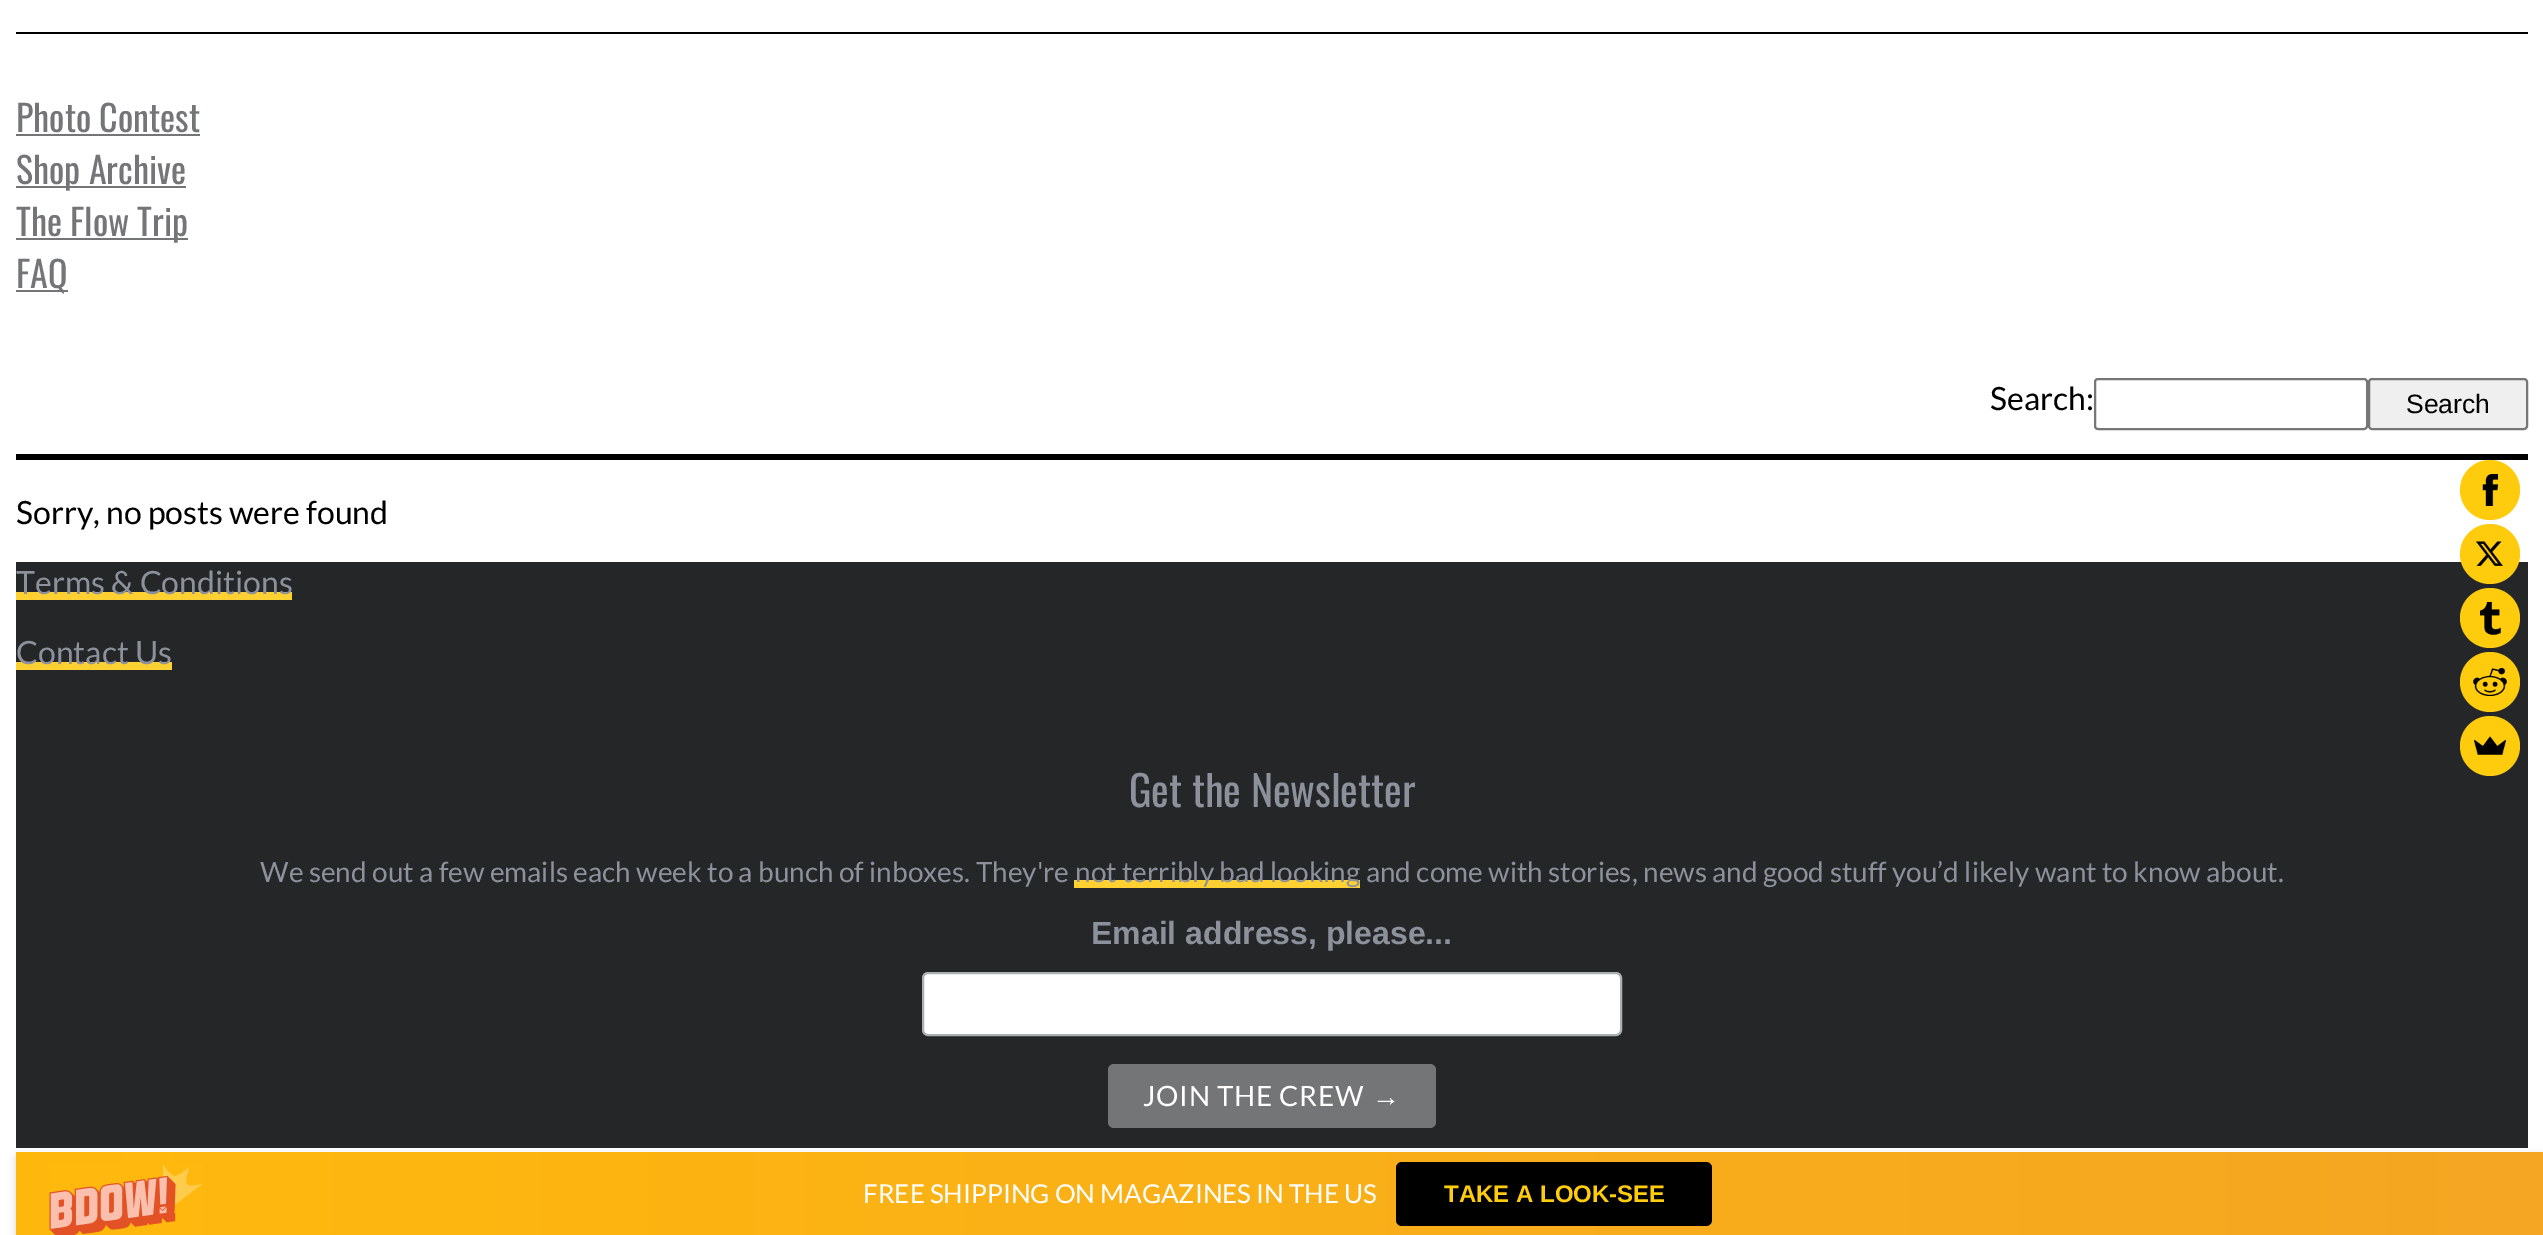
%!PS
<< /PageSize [2543 1235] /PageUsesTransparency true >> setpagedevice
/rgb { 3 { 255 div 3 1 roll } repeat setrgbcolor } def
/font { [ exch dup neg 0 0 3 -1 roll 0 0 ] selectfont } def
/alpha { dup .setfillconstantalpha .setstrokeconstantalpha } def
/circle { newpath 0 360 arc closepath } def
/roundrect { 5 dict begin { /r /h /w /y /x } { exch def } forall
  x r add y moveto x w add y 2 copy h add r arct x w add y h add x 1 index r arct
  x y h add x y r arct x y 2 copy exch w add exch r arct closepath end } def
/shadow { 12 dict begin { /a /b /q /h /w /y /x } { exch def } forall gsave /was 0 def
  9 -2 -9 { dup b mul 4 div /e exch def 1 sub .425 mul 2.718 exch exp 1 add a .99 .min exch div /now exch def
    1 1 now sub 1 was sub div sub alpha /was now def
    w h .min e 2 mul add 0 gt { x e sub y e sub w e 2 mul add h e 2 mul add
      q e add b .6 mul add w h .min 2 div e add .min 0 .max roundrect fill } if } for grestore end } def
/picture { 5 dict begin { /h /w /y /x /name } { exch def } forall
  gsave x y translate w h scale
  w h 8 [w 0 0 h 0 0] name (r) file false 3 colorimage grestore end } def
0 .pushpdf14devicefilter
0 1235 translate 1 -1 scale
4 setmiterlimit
255 255 255 rgb
0 0 2543 1235 rectfill
[
  [16 32 2512 2 0 0 0]
  [16 454 2512 6 0 0 0]
  [16 134 184 2 116 117 118]
  [16 186 170 2 116 117 118]
  [16 238 172 2 116 117 118]
  [16 290 52 2 116 117 118]
] { aload pop rgb rectfill } forall
118 118 118 rgb
2 setlinewidth
2095 379 272 50 3 roundrect stroke
239 239 239 rgb
2369 379 158 50 3 roundrect gsave fill grestore
118 118 118 rgb
stroke
[
  [16 562 2512 586 36 38 40]
  [16 592 276 8 254 208 49]
  [16 662 156 8 254 208 49]
  [1074 880 286 8 254 208 49]
] { aload pop rgb rectfill } forall
255 255 255 rgb
923 973 698 62 5 roundrect gsave fill grestore
171 176 178 rgb
stroke
116 117 118 rgb
1108 1064 328 64 6 roundrect fill
255 204 13 rgb
2490 490 30 circle fill
(img/1.rgb) 2482 474 16 32 picture
2490 554 30 circle fill
(img/2.rgb) 2476 541 27 25 picture
2490 618 30 circle fill
(img/3.rgb) 2480 602 21 33 picture
2490 682 30 circle fill
(img/4.rgb) 2473 668 34 28 picture
2490 746 30 circle fill
(img/5.rgb) 2474 736 32 19 picture
0 0 0 rgb
18 1158 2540 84 0 5 0.25 shadow
gsave 16 1152 moveto 2543 1152 lineto 2543 1235 lineto 16 1235 lineto closepath clip newpath
<< /ShadingType 2 /ColorSpace /DeviceRGB /Coords [16 1194 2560 1194] /Extend [true true] /Function << /FunctionType 2 /Domain [0 1] /C0 [1 0.725 0.051] /C1 [0.961 0.651 0.137] /N 1 >> >> shfill grestore
(img/6.rgb) 49 1164 154 71 picture
1396 1162 316 64 6 roundrect fill
/Oswald-Regular 36 font
116 117 118 rgb
[
  [(Photo Contest) 16 132]
  [(Shop Archive) 16 184]
  [(The Flow Trip) 16 236]
  [(FAQ) 16 288]
] { aload pop moveto show } forall
/Lato-Regular 32 font
0 0 0 rgb
1990 410 moveto (Search:) show
/LiberationSans-Regular 26.5 font
2406 413 moveto (Search) show
/Lato-Regular 32 font
16 524 moveto (Sorry, no posts were found) show
140 145 155 rgb
16 594 moveto (Terms & Conditions) show
16 664 moveto (Contact Us) show
/Oswald-Regular 42 font
1129 807 moveto (Get the Newsletter) show
/Lato-Regular 28 font
260 882 moveto (We send out a few emails each week to a bunch of inboxes. They're) show
1075 882 moveto (not terribly bad looking and come with stories, news and good stuff you’d likely want to know about.) show
/LiberationSans-Bold 32 font
1091 944 moveto (Email address, please...) show
/Lato-Regular 28 font
255 255 255 rgb
1143 1106 moveto 0.8 0 (JOIN THE CREW) ashow
/LiberationSerif-Regular 28 font
1372 1106 moveto 0.8 0 (→) ashow
/Lato-Regular 26 font
863 1203 moveto (FREE SHIPPING ON MAGAZINES IN THE US) show
/LiberationSans-Bold 24 font
255 204 13 rgb
1444 1202 moveto (TAKE A LOOK-SEE) show
.poppdf14devicefilter showpage
